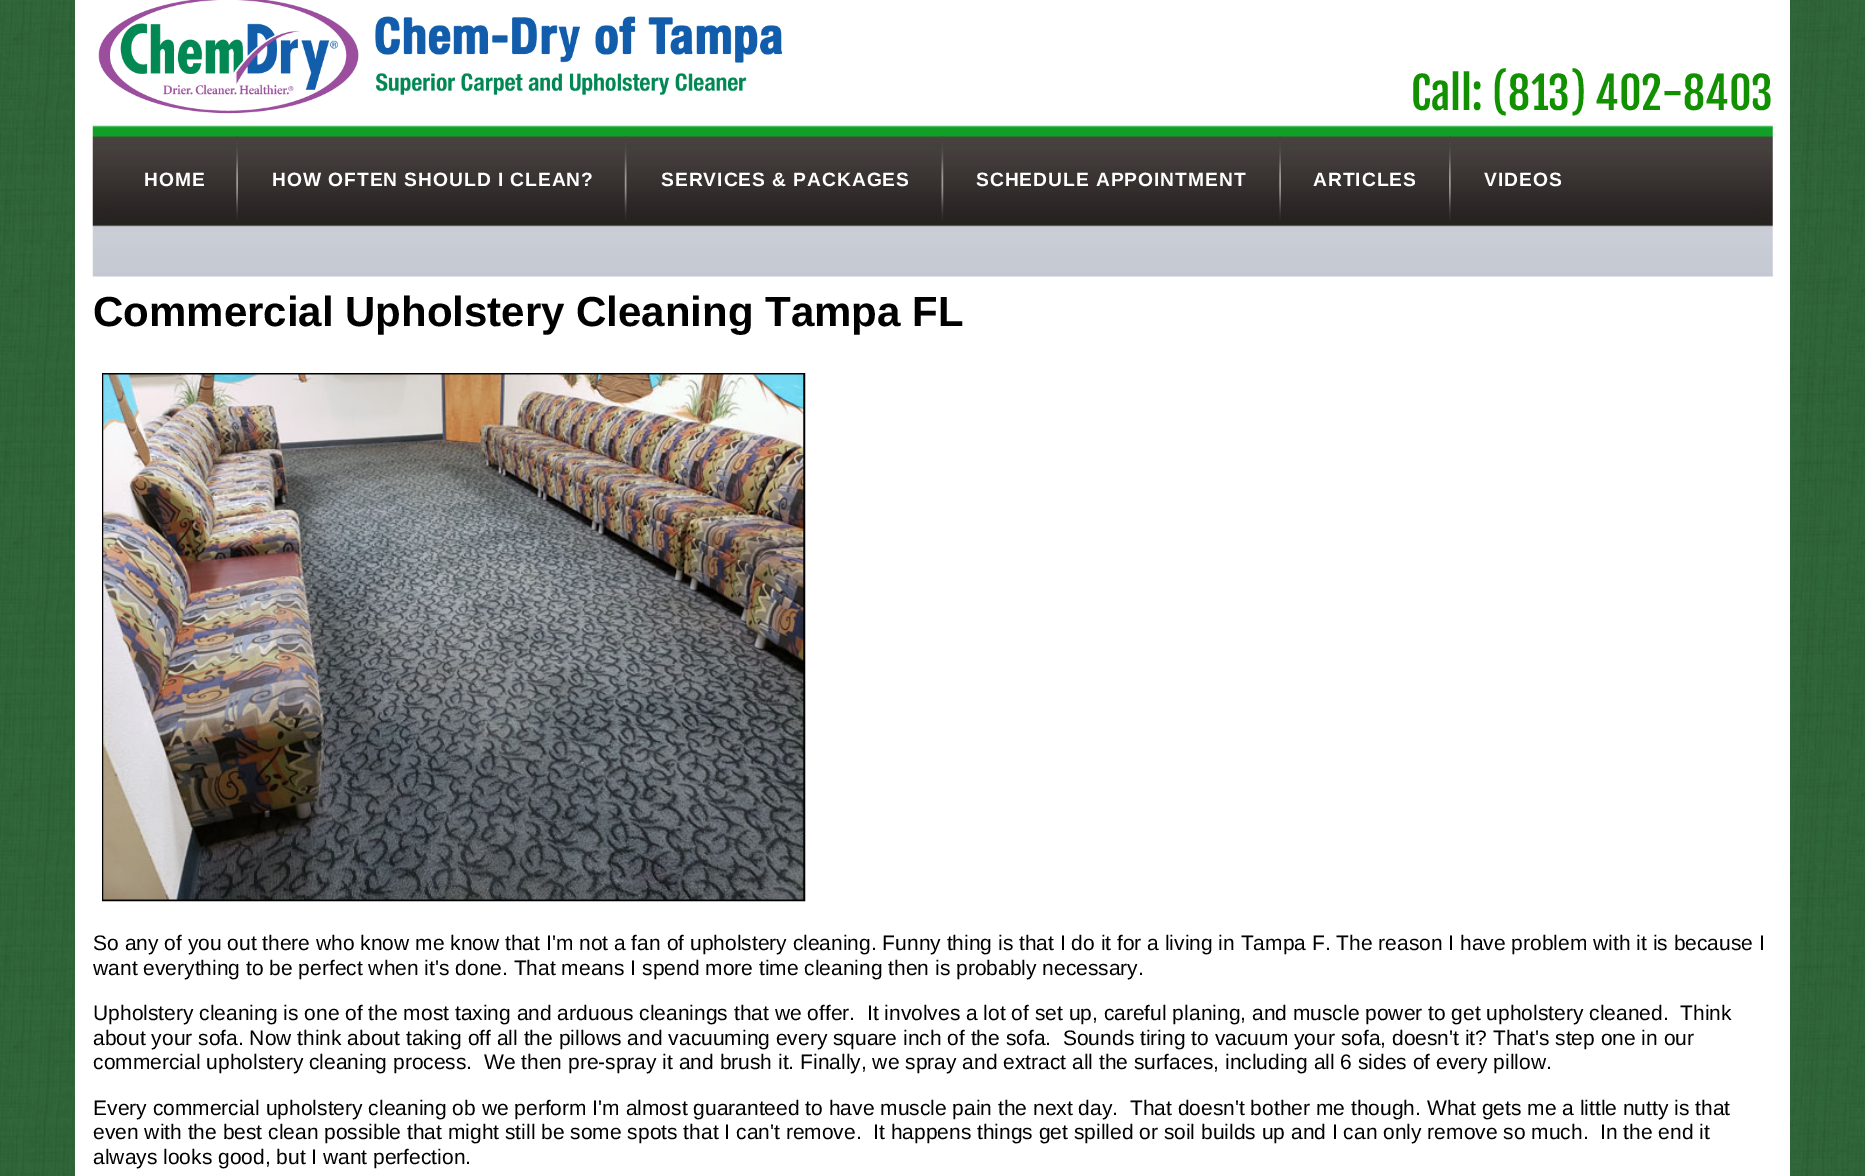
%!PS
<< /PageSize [1865 1176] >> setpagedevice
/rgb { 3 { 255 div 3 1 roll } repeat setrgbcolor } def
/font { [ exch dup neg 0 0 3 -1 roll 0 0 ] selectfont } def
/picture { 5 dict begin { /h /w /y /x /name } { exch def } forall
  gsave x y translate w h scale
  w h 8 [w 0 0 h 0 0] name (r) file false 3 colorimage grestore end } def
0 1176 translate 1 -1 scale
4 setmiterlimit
255 255 255 rgb
0 0 1865 1176 rectfill
(img/1.rgb) 0 0 1865 1176 picture
75 0 1715 1176 rectfill
(img/2.rgb) 98 0 685 114 picture
0 0 0 rgb
2 setlinewidth
103 374 701 526 rectstroke
(img/3.rgb) 103 374 701 526 picture
(img/4.rgb) 92 121 1681 156 picture
(img/5.rgb) 236 136 2 84 picture
(img/6.rgb) 624 136 3 84 picture
(img/7.rgb) 941 136 3 84 picture
(img/5.rgb) 1279 136 2 84 picture
(img/8.rgb) 1449 136 2 84 picture
/FjallaOne-Regular 43.75 font
17 144 0 rgb
1411 110 moveto (Call: \(813\) 402-8403) show
/LiberationSans-Bold 42 font
0 0 0 rgb
93 326 moveto (Commercial Upholstery Cleaning Tampa FL) show
/LiberationSans-Regular 21 font
[
  [(So any of you out there who know me know that I'm not a fan of upholstery cleaning. Funny thing is that I do it for a living in Tampa F. The reason I have problem with it is because I) 93 950]
  [(want everything to be perfect when it's done. That means I spend more time cleaning then is probably necessary.) 93 975]
  [(Upholstery cleaning is one of the most taxing and arduous cleanings that we offer.  It involves a lot of set up, careful planing, and muscle power to get upholstery cleaned.  Think) 93 1020]
  [(about your sofa. Now think about taking off all the pillows and vacuuming every square inch of the sofa.  Sounds tiring to vacuum your sofa, doesn't it? That's step one in our) 93 1045]
  [(commercial upholstery cleaning process.  We then pre-spray it and brush it. Finally, we spray and extract all the surfaces, including all 6 sides of every pillow.) 93 1069]
  [(Every commercial upholstery cleaning ob we perform I'm almost guaranteed to have muscle pain the next day.  That doesn't bother me though. What gets me a little nutty is that) 93 1115]
  [(even with the best clean possible that might still be some spots that I can't remove.  It happens things get spilled or soil builds up and I can only remove so much.  In the end it) 93 1139]
  [(always looks good, but I want perfection.) 93 1164]
] { aload pop moveto show } forall
/LiberationSans-Bold 19.25 font
255 255 255 rgb
144 186 moveto 0.95 0 (HOME) ashow
272 186 moveto 0.95 0 (HOW OFTEN SHOULD I CLEAN?) ashow
661 186 moveto 0.95 0 (SERVICES & PACKAGES) ashow
976 186 moveto 0.95 0 (SCHEDULE APPOINTMENT) ashow
1313 186 moveto 0.95 0 (ARTICLES) ashow
1484 186 moveto 0.95 0 (VIDEOS) ashow
showpage
